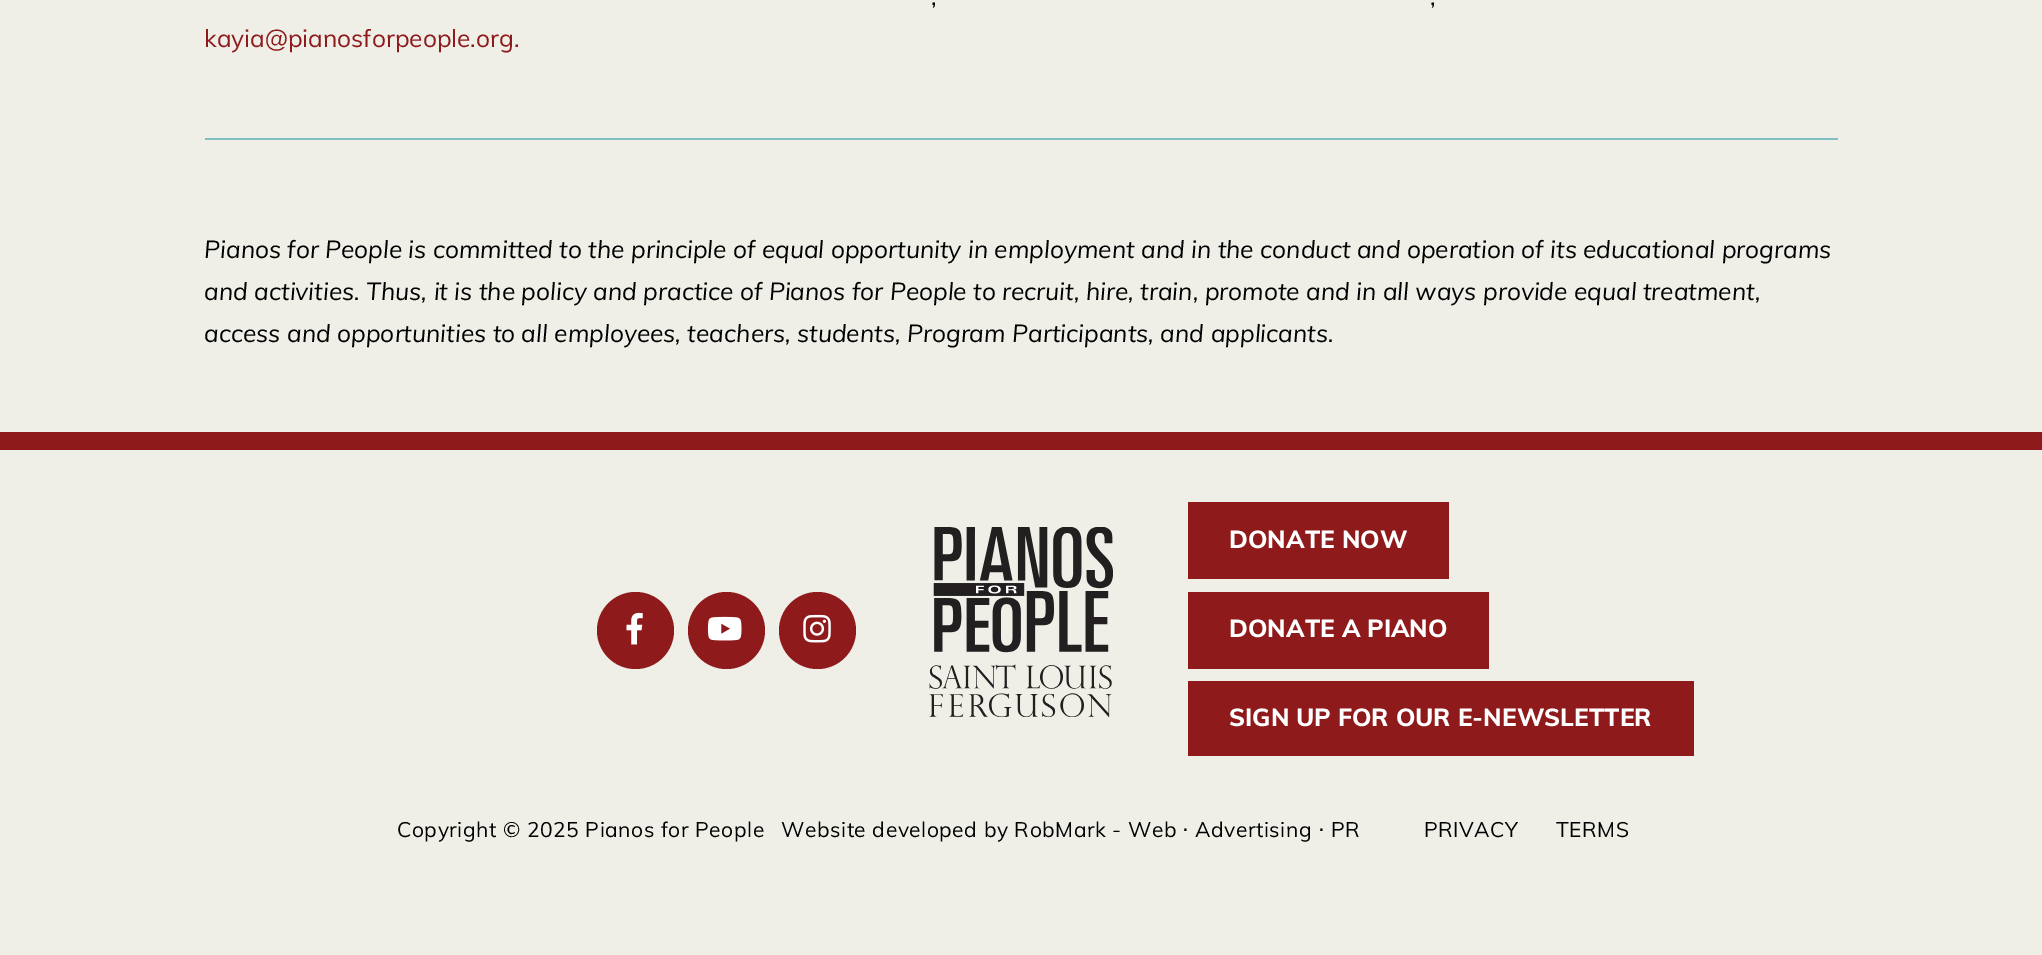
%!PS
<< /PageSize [2042 955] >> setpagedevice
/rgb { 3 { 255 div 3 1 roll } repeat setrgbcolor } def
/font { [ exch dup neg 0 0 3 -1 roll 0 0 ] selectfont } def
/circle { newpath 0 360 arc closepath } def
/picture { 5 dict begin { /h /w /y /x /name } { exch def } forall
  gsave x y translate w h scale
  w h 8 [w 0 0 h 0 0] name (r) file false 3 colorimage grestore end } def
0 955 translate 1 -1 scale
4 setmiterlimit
239 239 232 rgb
0 0 2042 955 rectfill
126 190 197 rgb
205 138 1633 2 rectfill
142 26 28 rgb
0 432 2042 18 rectfill
635.5 630.5 38.5 circle fill
(img/1.rgb) 626 612 17 33 picture
726.5 630.5 38.5 circle fill
(img/2.rgb) 707 616 35 25 picture
817.5 630.5 38.5 circle fill
(img/3.rgb) 803 614 28 29 picture
(img/4.rgb) 929 527 184 190 picture
[
  [1188 502 261 77 142 26 28]
  [1188 592 301 77 142 26 28]
  [1188 681 506 75 142 26 28]
] { aload pop rgb rectfill } forall
/Muli-Regular 24.5 font
0 0 0 rgb
931 5 moveto (,) show
1430 5 moveto (,) show
142 26 28 rgb
204 47 moveto (kayia@pianosforpeople.org.) show
/Muli-Italic 24.5 font
0 0 0 rgb
[
  [(Pianos for People is committed to the principle of equal opportunity in employment and in the conduct and operation of its educational programs) 204 258]
  [(and activities. Thus, it is the policy and practice of Pianos for People to recruit, hire, train, promote and in all ways provide equal treatment,) 204 300]
  [(access and opportunities to all employees, teachers, students, Program Participants, and applicants.) 204 342]
] { aload pop moveto show } forall
/Muli-ExtraBold 24.5 font
255 255 255 rgb
[
  [(DONATE NOW) 1229 548]
  [(DONATE A PIANO) 1229 637]
  [(SIGN UP FOR OUR E-NEWSLETTER) 1229 726]
] { aload pop moveto show } forall
/Muli-Regular 21 font
0 0 0 rgb
397 837 moveto 0.55 0 (Copyright © 2025 Pianos for People) ashow
781 837 moveto 0.55 0 (Website developed by RobMark - Web) ashow
/DejaVuSans-Regular 21 font
1182 837 moveto 0.55 0 (⋅) ashow
/Muli-Regular 21 font
1195 837 moveto 0.55 0 (Advertising) ashow
/DejaVuSans-Regular 21 font
1318 837 moveto 0.55 0 (⋅) ashow
/Muli-Regular 21 font
1331 837 moveto 0.55 0 (PR) ashow
1424 837 moveto 0.55 0 (PRIVACY) ashow
1556 837 moveto 0.55 0 (TERMS) ashow
showpage
